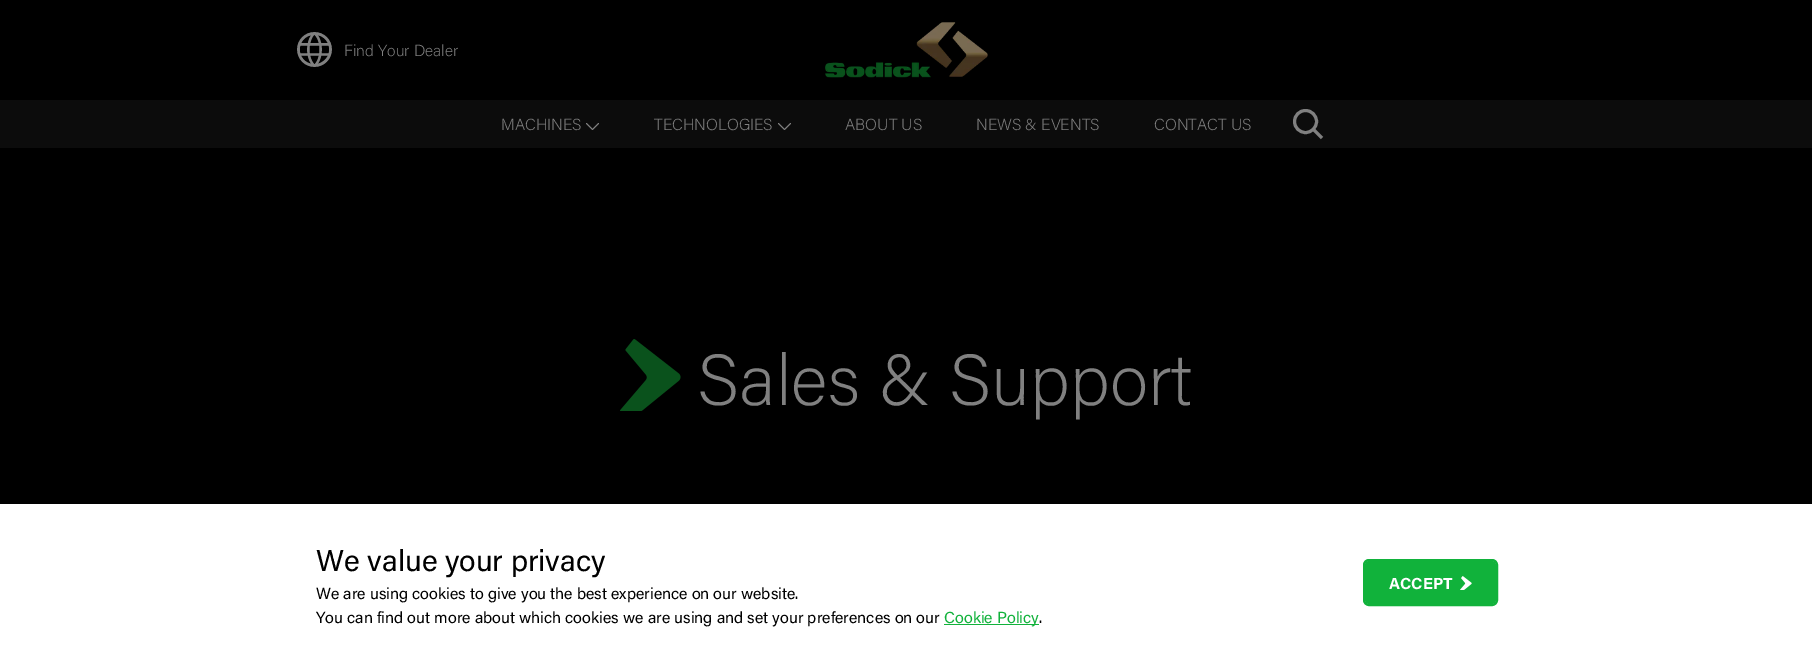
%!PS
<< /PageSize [1812 661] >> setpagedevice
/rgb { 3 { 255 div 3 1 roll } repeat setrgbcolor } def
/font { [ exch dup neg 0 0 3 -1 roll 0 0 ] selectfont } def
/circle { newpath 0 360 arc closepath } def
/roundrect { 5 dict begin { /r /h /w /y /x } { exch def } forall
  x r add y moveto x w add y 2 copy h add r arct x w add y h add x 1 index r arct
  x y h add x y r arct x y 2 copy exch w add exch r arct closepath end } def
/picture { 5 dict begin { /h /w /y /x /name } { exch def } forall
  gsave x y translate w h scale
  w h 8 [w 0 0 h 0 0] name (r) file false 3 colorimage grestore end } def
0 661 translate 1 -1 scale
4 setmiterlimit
0 0 0 rgb
0 0 1812 661 rectfill
(img/1.rgb) 297 32 35 35 picture
(img/2.rgb) 825 22 163 56 picture
12 12 12 rgb
0 100 1812 48 rectfill
128 128 128 rgb
1 setlinecap
586.5 123.5 moveto 592.5 129.5 lineto 598.5 123.5 moveto 592.5 129.5 lineto stroke
778.5 123.5 moveto 784.5 129.5 lineto 790.5 123.5 moveto 784.5 129.5 lineto stroke
3 setlinewidth
0 setlinecap
1305.5 121.5 11 circle stroke
1314 130 moveto 1322 138 lineto stroke
(img/3.rgb) 620 339 61 72 picture
255 255 255 rgb
0 504 1812 157 rectfill
17 178 59 rgb
944 624 95 1 rectfill
1365 561 131 43 4 roundrect fill
2 setlinewidth
1364 560 133 45 5 roundrect stroke
(img/4.rgb) 1460 576 12 14 picture
/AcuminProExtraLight-ExtraLight 16 font
128 128 128 rgb
[
  [(Find Your Dealer) 344 56]
  [(MACHINES) 501 130]
  [(TECHNOLOGIES) 654 130]
  [(ABOUT US) 845 130]
  [(NEWS & EVENTS) 976 130]
  [(CONTACT US) 1154 130]
] { aload pop moveto show } forall
/AcuminProExtraLight-ExtraLight 72 font
697 405 moveto (Sales & Support) show
/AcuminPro-Regular 30 font
0 0 0 rgb
316 571 moveto (We value your privacy) show
/AcuminPro-Regular 16 font
316 599 moveto (We are using cookies to give you the best experience on our website.) show
316 623 moveto (You can find out more about which cookies we are using and set your preferences on our) show
17 178 59 rgb
944 623 moveto (Cookie Policy) show
0 0 0 rgb
1039 623 moveto (.) show
/AcuminPro-Bold 16 font
255 255 255 rgb
1389 589 moveto (ACCEPT) show
showpage
